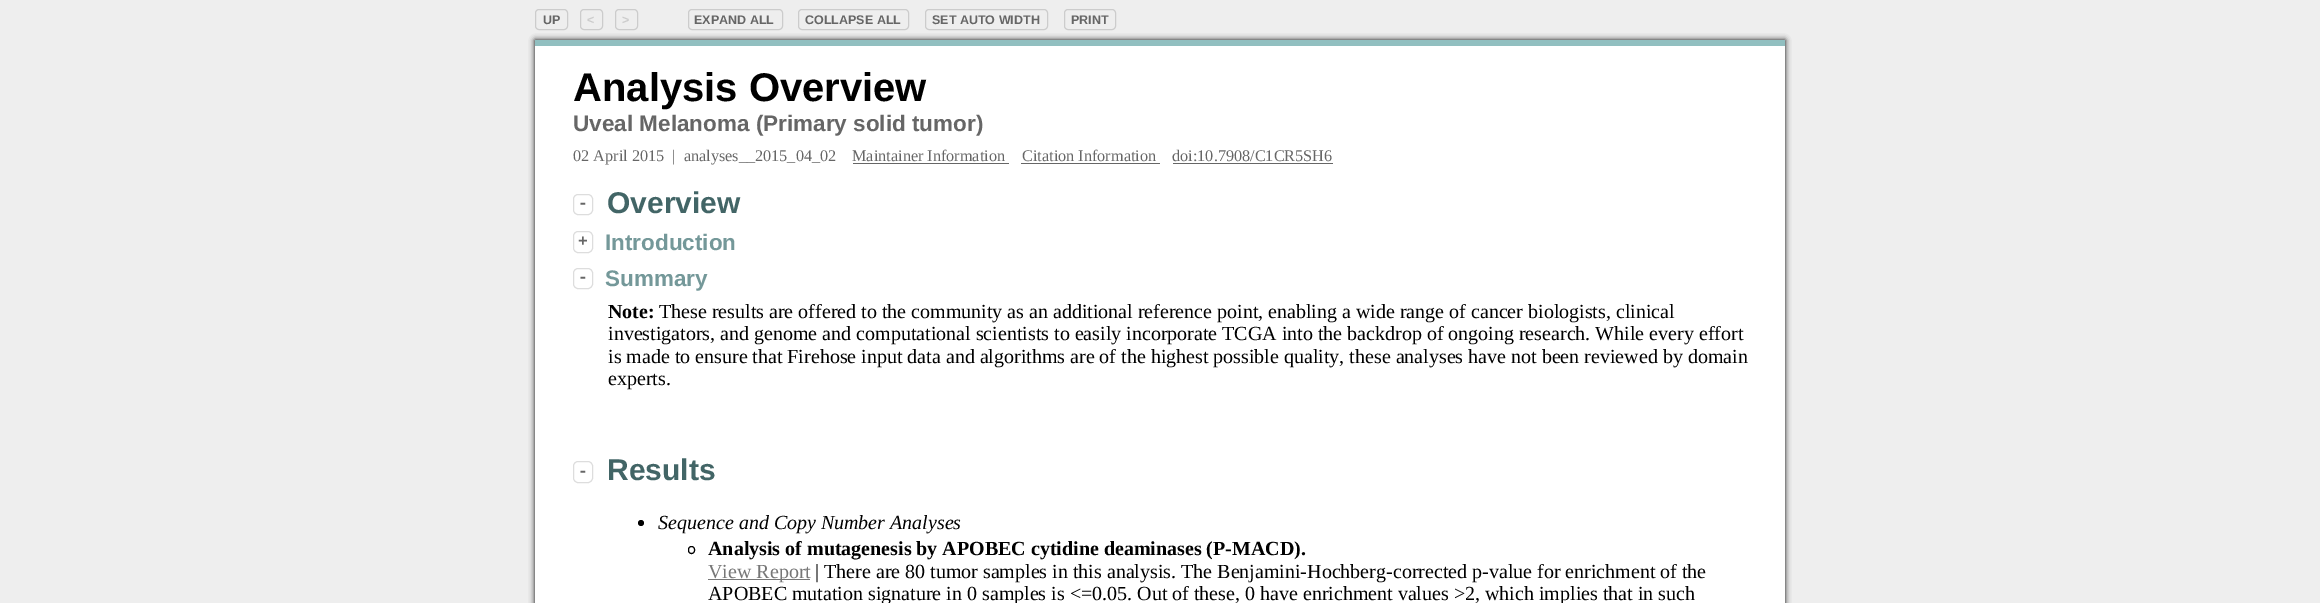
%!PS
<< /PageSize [2320 603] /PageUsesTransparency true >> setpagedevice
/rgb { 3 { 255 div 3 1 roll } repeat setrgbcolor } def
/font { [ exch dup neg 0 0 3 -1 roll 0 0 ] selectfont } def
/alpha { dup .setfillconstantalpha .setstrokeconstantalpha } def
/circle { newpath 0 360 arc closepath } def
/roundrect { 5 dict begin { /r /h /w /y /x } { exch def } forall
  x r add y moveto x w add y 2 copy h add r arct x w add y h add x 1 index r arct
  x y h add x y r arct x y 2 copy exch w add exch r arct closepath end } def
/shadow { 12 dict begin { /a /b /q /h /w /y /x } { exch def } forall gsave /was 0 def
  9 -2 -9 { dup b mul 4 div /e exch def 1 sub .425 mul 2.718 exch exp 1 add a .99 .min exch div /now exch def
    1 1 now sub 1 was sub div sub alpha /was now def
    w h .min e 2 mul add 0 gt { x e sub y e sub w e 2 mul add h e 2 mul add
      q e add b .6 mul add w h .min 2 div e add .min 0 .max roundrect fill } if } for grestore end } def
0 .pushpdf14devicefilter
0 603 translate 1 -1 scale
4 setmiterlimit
238 238 238 rgb
0 0 2320 603 rectfill
204 204 204 rgb
535.5 9.5 32 20 3.5 roundrect stroke
580.5 9.5 22 20 3.5 roundrect stroke
615.5 9.5 22 20 3.5 roundrect stroke
688.5 9.5 94 20 3.5 roundrect stroke
798.5 9.5 110 20 3.5 roundrect stroke
925.5 9.5 122 20 3.5 roundrect stroke
1064.5 9.5 51 20 3.5 roundrect stroke
0 0 0 rgb
535 40 1250 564 0 3 1 shadow
[
  [535 46 1250 557 255 255 255]
  [535 40 1250 6 145 191 192]
  [853 163 156 1 102 102 102]
  [1021 163 139 1 102 102 102]
  [1173 163 160 1 102 102 102]
] { aload pop rgb rectfill } forall
221 221 221 rgb
573.5 194.5 19 20 4.5 roundrect stroke
573.5 231.5 19 21 4.5 roundrect stroke
573.5 268.5 19 20 4.5 roundrect stroke
573.5 461.5 19 21 4.5 roundrect stroke
0 0 0 rgb
641 523 3 circle fill
688.5 546.5 6 7 3 roundrect stroke
119 119 119 rgb
708 579 102 1 rectfill
/LiberationSans-Bold 12.5 font
102 102 102 rgb
543 24 moveto (UP) show
204 204 204 rgb
587 24 moveto (<) show
622 24 moveto (>) show
102 102 102 rgb
[
  [(EXPAND ALL) 694 24]
  [(COLLAPSE ALL) 805 24]
  [(SET AUTO WIDTH) 932 24]
  [(PRINT) 1071 24]
] { aload pop moveto show } forall
/LiberationSans-Bold 40 font
0 0 0 rgb
573 101 moveto (Analysis Overview) show
/LiberationSans-Bold 22.5 font
102 102 102 rgb
573 131 moveto (Uveal Melanoma \(Primary solid tumor\)) show
/LiberationSerif-Regular 16.25 font
[
  [(02 April 2015  |  analyses__2015_04_02) 573 161]
  [(Maintainer Information) 852 161]
  [(Citation Information) 1022 161]
  [(doi:10.7908/C1CR5SH6) 1172 161]
] { aload pop moveto show } forall
/LiberationMono-Bold 16.25 font
578 208 moveto (-) show
/LiberationSans-Bold 30 font
66 101 102 rgb
607 213 moveto (Overview) show
/LiberationMono-Bold 16.25 font
102 102 102 rgb
578 246 moveto (+) show
/LiberationSans-Bold 22.5 font
116 152 153 rgb
605 250 moveto (Introduction) show
/LiberationMono-Bold 16.25 font
102 102 102 rgb
578 282 moveto (-) show
/LiberationSans-Bold 22.5 font
116 152 153 rgb
605 286 moveto (Summary) show
/LiberationSerif-Bold 20 font
0 0 0 rgb
608 318 moveto (Note:) show
/LiberationSerif-Regular 20 font
[
  [(These results are offered to the community as an additional reference point, enabling a wide range of cancer biologists, clinical) 659 318]
  [(investigators, and genome and computational scientists to easily incorporate TCGA into the backdrop of ongoing research. While every effort) 608 340]
  [(is made to ensure that Firehose input data and algorithms are of the highest possible quality, these analyses have not been reviewed by domain) 608 363]
  [(experts.) 608 385]
] { aload pop moveto show } forall
/LiberationMono-Bold 16.25 font
102 102 102 rgb
578 476 moveto (-) show
/LiberationSans-Bold 30 font
66 101 102 rgb
607 480 moveto (Results) show
/LiberationSerif-Italic 20 font
0 0 0 rgb
658 529 moveto (Sequence and Copy Number Analyses) show
/LiberationSerif-Bold 20 font
708 555 moveto (Analysis of mutagenesis by APOBEC cytidine deaminases \(P-MACD\).) show
/LiberationSerif-Regular 20 font
119 119 119 rgb
708 578 moveto (View Report) show
0 0 0 rgb
815 578 moveto (| There are 80 tumor samples in this analysis. The Benjamini-Hochberg-corrected p-value for enrichment of the) show
708 600 moveto (APOBEC mutation signature in 0 samples is <=0.05. Out of these, 0 have enrichment values >2, which implies that in such) show
.poppdf14devicefilter showpage
